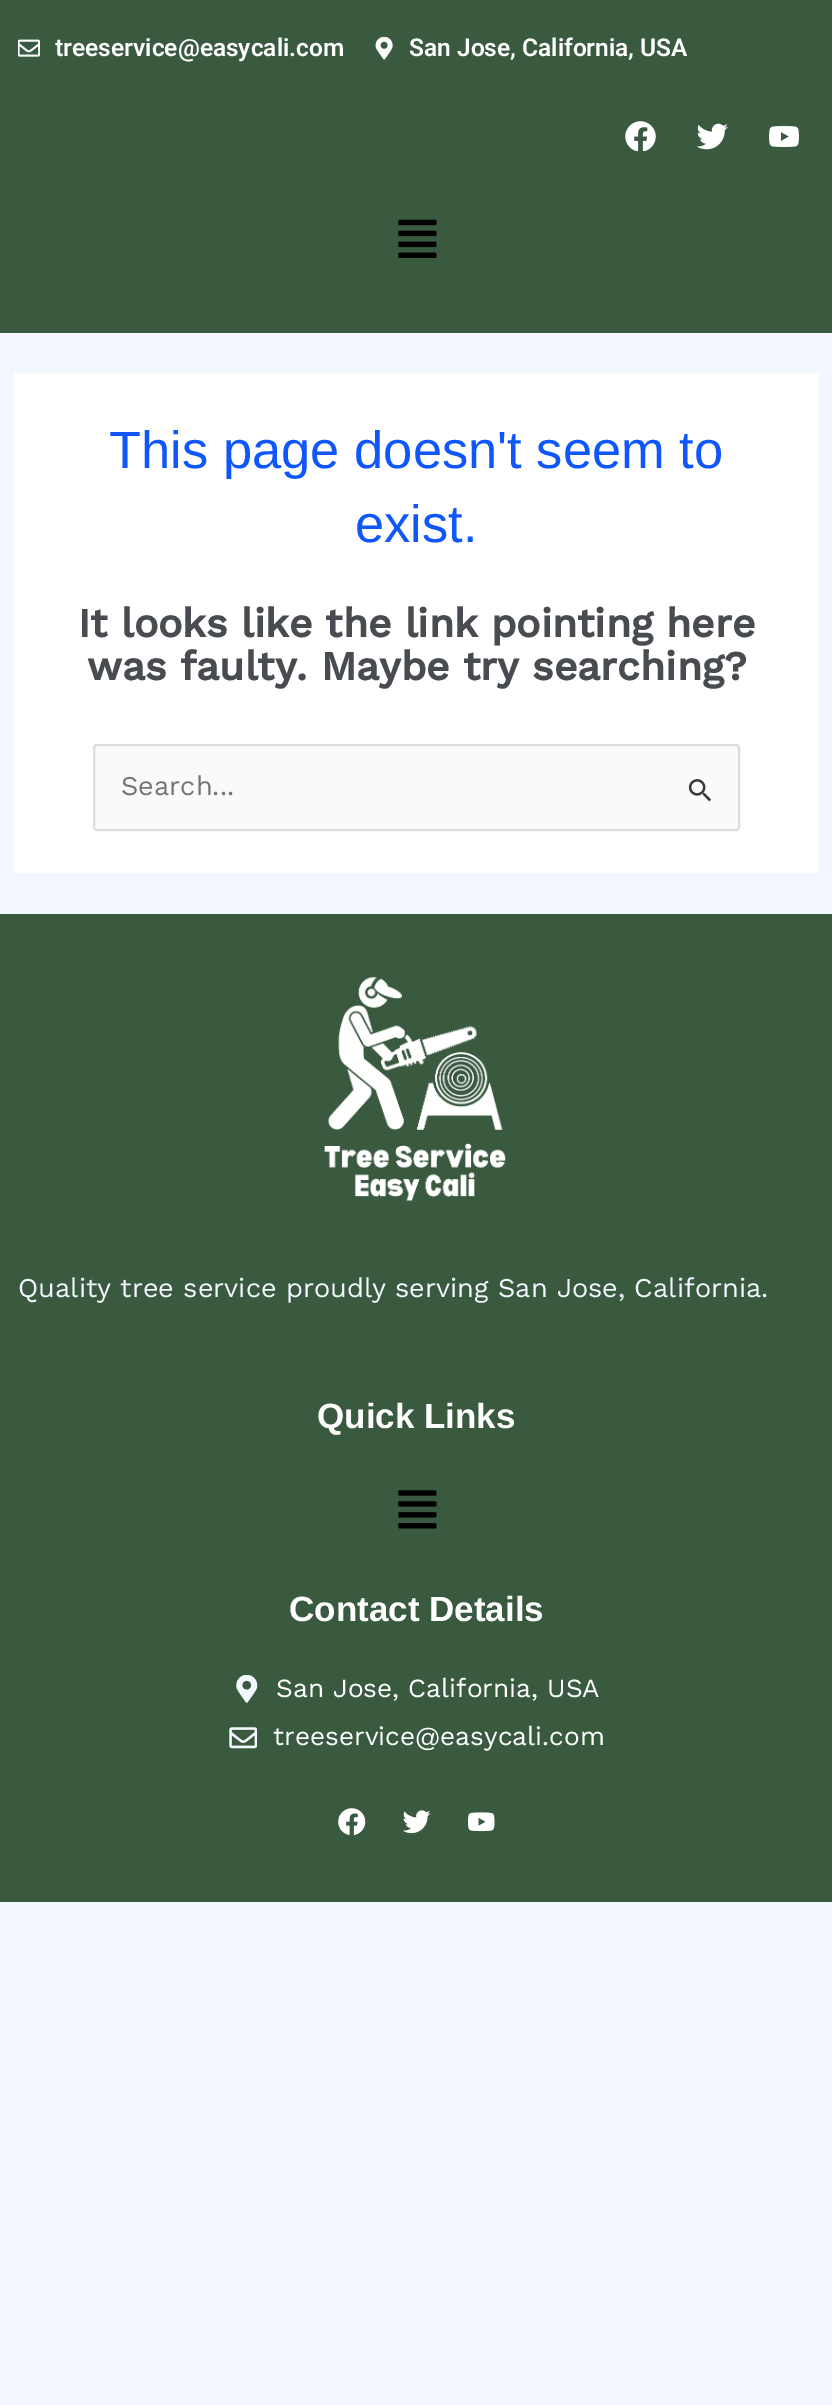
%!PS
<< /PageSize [832 2405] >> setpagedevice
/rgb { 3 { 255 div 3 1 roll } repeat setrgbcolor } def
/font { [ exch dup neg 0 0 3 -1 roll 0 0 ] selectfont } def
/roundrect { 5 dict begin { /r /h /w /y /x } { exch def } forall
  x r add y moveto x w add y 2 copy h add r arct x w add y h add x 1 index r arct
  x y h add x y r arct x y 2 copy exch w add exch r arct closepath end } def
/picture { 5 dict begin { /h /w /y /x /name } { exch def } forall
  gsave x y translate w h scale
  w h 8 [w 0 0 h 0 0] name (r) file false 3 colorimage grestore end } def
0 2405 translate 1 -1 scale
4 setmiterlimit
243 247 255 rgb
0 0 832 2405 rectfill
58 90 64 rgb
0 0 832 333 rectfill
(img/1.rgb) 18 39 22 18 picture
(img/2.rgb) 375 37 18 23 picture
(img/3.rgb) 625 121 31 30 picture
(img/4.rgb) 697 123 31 27 picture
(img/5.rgb) 769 126 30 21 picture
(img/6.rgb) 398 219 39 39 picture
255 255 255 rgb
14 373 805 500 rectfill
250 250 250 rgb
94 745 645 85 3 roundrect gsave fill grestore
221 221 221 rgb
2 setlinewidth
stroke
(img/7.rgb) 688 779 23 23 picture
58 90 64 rgb
0 914 832 988 rectfill
(img/8.rgb) 324 976 182 225 picture
(img/9.rgb) 398 1490 39 39 picture
(img/10.rgb) 236 1675 22 28 picture
(img/11.rgb) 229 1727 28 22 picture
(img/12.rgb) 338 1808 28 28 picture
(img/13.rgb) 403 1810 28 24 picture
(img/14.rgb) 468 1812 27 20 picture
/Roboto-SemiBold 24.5 font
255 255 255 rgb
55 56 moveto (treeservice@easycali.com) show
409 56 moveto (San Jose, California, USA) show
/LiberationSans-Regular 52.5 font
15 87 251 rgb
109 468 moveto (This page doesn't seem to) show
355 542 moveto (exist.) show
/WorkSans-Bold 40.75 font
72 76 80 rgb
78 637 moveto (It looks like the link pointing here) show
87 680 moveto (was faulty. Maybe try searching?) show
/WorkSans-Regular 27.1 font
117 117 117 rgb
121 795 moveto (Search...) show
243 247 255 rgb
18 1297 moveto (Quality tree service proudly serving San Jose, California.) show
/LiberationSans-Bold 35 font
255 255 255 rgb
317 1428 moveto (Quick Links) show
289 1621 moveto (Contact Details) show
/WorkSans-Regular 26.25 font
276 1697 moveto (San Jose, California, USA) show
273 1745 moveto (treeservice@easycali.com) show
showpage
